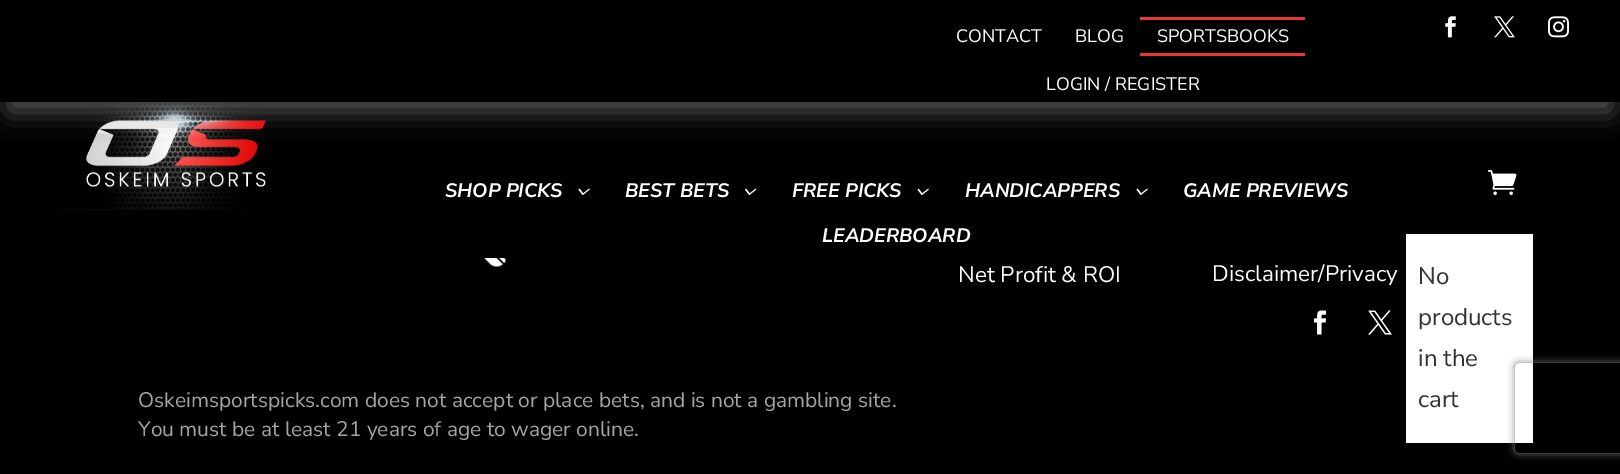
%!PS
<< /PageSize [1620 474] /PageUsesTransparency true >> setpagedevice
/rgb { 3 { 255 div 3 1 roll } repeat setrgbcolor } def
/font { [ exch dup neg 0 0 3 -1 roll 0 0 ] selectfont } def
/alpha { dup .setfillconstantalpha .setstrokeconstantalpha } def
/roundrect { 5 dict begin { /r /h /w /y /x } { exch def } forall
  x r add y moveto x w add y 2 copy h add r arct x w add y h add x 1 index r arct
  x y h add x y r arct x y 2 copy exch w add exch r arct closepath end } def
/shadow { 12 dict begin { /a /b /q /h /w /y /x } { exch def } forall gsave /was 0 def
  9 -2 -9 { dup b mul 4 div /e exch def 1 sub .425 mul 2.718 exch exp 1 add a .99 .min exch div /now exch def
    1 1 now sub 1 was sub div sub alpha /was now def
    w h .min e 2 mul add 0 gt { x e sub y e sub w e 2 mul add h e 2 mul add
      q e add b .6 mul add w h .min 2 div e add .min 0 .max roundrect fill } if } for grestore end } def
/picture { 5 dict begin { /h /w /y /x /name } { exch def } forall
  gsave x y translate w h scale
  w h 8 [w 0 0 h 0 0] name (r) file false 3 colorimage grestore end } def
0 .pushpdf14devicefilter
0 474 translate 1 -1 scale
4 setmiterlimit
0 0 0 rgb
0 0 1620 474 rectfill
(img/4.rgb) 51 102 215 108 picture
89 89 89 rgb
9 27 1602 84 0 13.5 1 shadow
[
  [0 1 1620 101 0 0 0]
  [1140 17 165 3 237 52 49]
  [1140 53 165 3 237 52 49]
] { aload pop rgb rectfill } forall
(img/1.rgb) 1445 16 11 22 picture
(img/2.rgb) 1494 16 21 22 picture
(img/3.rgb) 1548 16 21 22 picture
(img/5.rgb) 578 188 12 7 picture
(img/6.rgb) 745 188 12 7 picture
(img/5.rgb) 917 188 12 7 picture
(img/5.rgb) 1136 188 12 7 picture
(img/7.rgb) 1488 170 29 25 picture
255 255 255 rgb
1406 234 127 209 rectfill
(img/8.rgb) 484 258 22 9 picture
(img/9.rgb) 1314 310 13 25 picture
(img/10.rgb) 1368 310 24 25 picture
gsave
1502 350 moveto 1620 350 lineto 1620 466 lineto 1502 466 lineto closepath 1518 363 moveto 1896 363 lineto 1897.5 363 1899 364.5 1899 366 curveto 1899 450 lineto 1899 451.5 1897.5 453 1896 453 curveto 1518 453 lineto 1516.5 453 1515 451.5 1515 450 curveto 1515 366 lineto 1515 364.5 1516.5 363 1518 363 curveto closepath eoclip newpath
128 128 128 rgb
1515 363 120 90 3 4 1 shadow
grestore
/NunitoSans-Regular 18 font
[
  [(CONTACT) 956 42]
  [(BLOG) 1075 42]
  [(SPORTSBOOKS) 1157 42]
  [(LOGIN / REGISTER) 1046 90]
] { aload pop moveto show } forall
/NunitoSans-BoldItalic 19.5 font
[
  [(SHOP PICKS) 445 197]
  [(BEST BETS) 625 197]
  [(FREE PICKS) 792 197]
  [(HANDICAPPERS) 965 197]
  [(GAME PREVIEWS) 1183 197]
  [(LEADERBOARD) 822 242]
] { aload pop moveto show } forall
/NunitoSans-Regular 24 font
51 51 51 rgb
[
  [(No) 1418 284]
  [(products) 1418 325]
  [(in the) 1418 366]
  [(cart) 1418 407]
] { aload pop moveto show } forall
/NunitoSans-Regular 22.5 font
255 255 255 rgb
958 282 moveto (Net Profit & ROI) show
1212 281 moveto (Disclaimer/Privacy) show
/NunitoSans-Regular 21 font
163 164 165 rgb
138 407 moveto (Oskeimsportspicks.com does not accept or place bets, and is not a gambling site.) show
138 436 moveto (You must be at least 21 years of age to wager online.) show
.poppdf14devicefilter showpage
